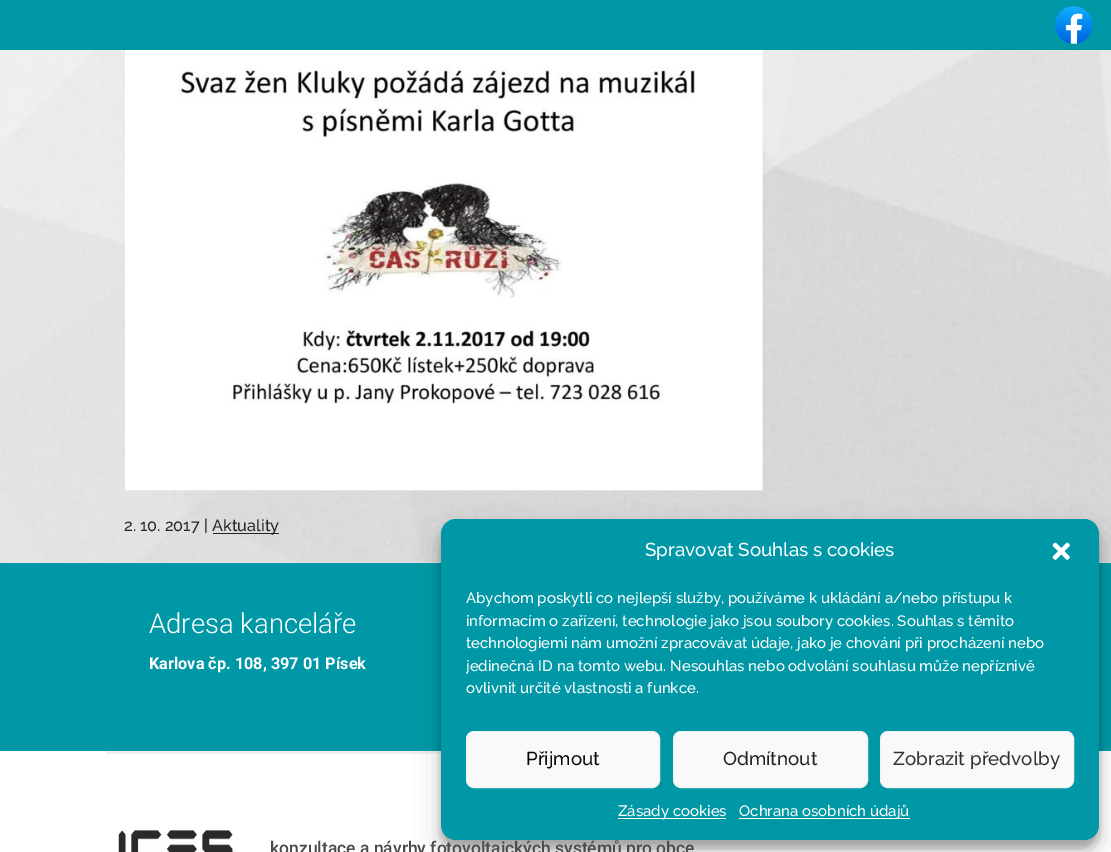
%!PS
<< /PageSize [1111 852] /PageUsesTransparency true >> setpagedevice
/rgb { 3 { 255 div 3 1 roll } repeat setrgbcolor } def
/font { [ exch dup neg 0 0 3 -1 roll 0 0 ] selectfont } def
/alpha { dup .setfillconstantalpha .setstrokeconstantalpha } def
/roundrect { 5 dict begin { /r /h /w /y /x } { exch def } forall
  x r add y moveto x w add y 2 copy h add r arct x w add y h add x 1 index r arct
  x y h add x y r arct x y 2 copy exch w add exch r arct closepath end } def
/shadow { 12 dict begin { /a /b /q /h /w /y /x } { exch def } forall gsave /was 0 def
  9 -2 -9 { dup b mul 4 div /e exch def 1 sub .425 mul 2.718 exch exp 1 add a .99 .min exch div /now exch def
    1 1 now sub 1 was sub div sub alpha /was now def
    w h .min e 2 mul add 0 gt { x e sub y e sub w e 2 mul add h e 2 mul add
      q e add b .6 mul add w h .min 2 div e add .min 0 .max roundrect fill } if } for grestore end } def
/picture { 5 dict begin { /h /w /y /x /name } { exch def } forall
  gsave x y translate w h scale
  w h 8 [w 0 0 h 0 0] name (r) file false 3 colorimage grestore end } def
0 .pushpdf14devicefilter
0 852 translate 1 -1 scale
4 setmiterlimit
255 255 255 rgb
0 0 1111 852 rectfill
0 152 166 rgb
0 0 1111 50 rectfill
(img/1.rgb) 1055 6 38 38 picture
(img/2.rgb) 0 50 1111 513 picture
(img/3.rgb) 125 50 638 441 picture
[
  [213 533 66 1 33 37 41]
  [0 563 1111 188 0 152 166]
  [106 751 335 3 240 240 240]
] { aload pop rgb rectfill } forall
(img/4.rgb) 118 830 115 22 picture
0 0 0 rgb
441 526 658 322 15 4 0.23 shadow
441 531 658 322 15 12.5 0.19 shadow
0 152 166 rgb
441 519 658 321 15 roundrect fill
(img/5.rgb) 1052 542 18 18 picture
249 249 249 rgb
466.5 731.5 193 56 7.5 roundrect gsave fill grestore
242 242 242 rgb
stroke
249 249 249 rgb
673.5 731.5 194 56 7.5 roundrect gsave fill grestore
242 242 242 rgb
stroke
249 249 249 rgb
880.5 731.5 193 56 7.5 roundrect gsave fill grestore
242 242 242 rgb
stroke
255 255 255 rgb
618 818 108 1 rectfill
739 818 171 1 rectfill
/Raleway-Medium 16.25 font
33 37 41 rgb
124 531 moveto (2. 10. 2017 |) show
212 531 moveto (Aktuality) show
/Roboto-Light 27.5 font
255 255 255 rgb
149 633 moveto (Adresa kanceláře) show
/Roboto-Bold 16.25 font
149 669 moveto (Karlova čp. 108, 397 01 Písek) show
/Roboto-Medium 17.5 font
75 75 75 rgb
270 854 moveto (konzultace a návrhy fotovoltaických systémů pro obce) show
/Raleway-Medium 18.75 font
255 255 255 rgb
645 556 moveto (Spravovat Souhlas s cookies) show
/Raleway-Medium 15 font
[
  [(Abychom poskytli co nejlepší služby, používáme k ukládání a/nebo přístupu k) 466 603]
  [(informacím o zařízení, technologie jako jsou soubory cookies. Souhlas s těmito) 466 626]
  [(technologiemi nám umožní zpracovávat údaje, jako je chování při procházení nebo) 466 648]
] { aload pop moveto show } forall
gsave
466 588 608 118 rectclip
466 671 moveto (jedinečná ID na tomto webu. Nesouhlas nebo odvolání souhlasu může nepříznivě) show
grestore
466 693 moveto (ovlivnit určité vlastnosti a funkce.) show
/Raleway-Medium 18.75 font
10 10 10 rgb
526 765 moveto (Přijmout) show
34 34 34 rgb
723 765 moveto (Odmítnout) show
51 51 51 rgb
893 765 moveto (Zobrazit předvolby) show
/Raleway-Medium 15 font
255 255 255 rgb
618 816 moveto (Zásady cookies) show
739 816 moveto (Ochrana osobních údajů) show
.poppdf14devicefilter showpage
